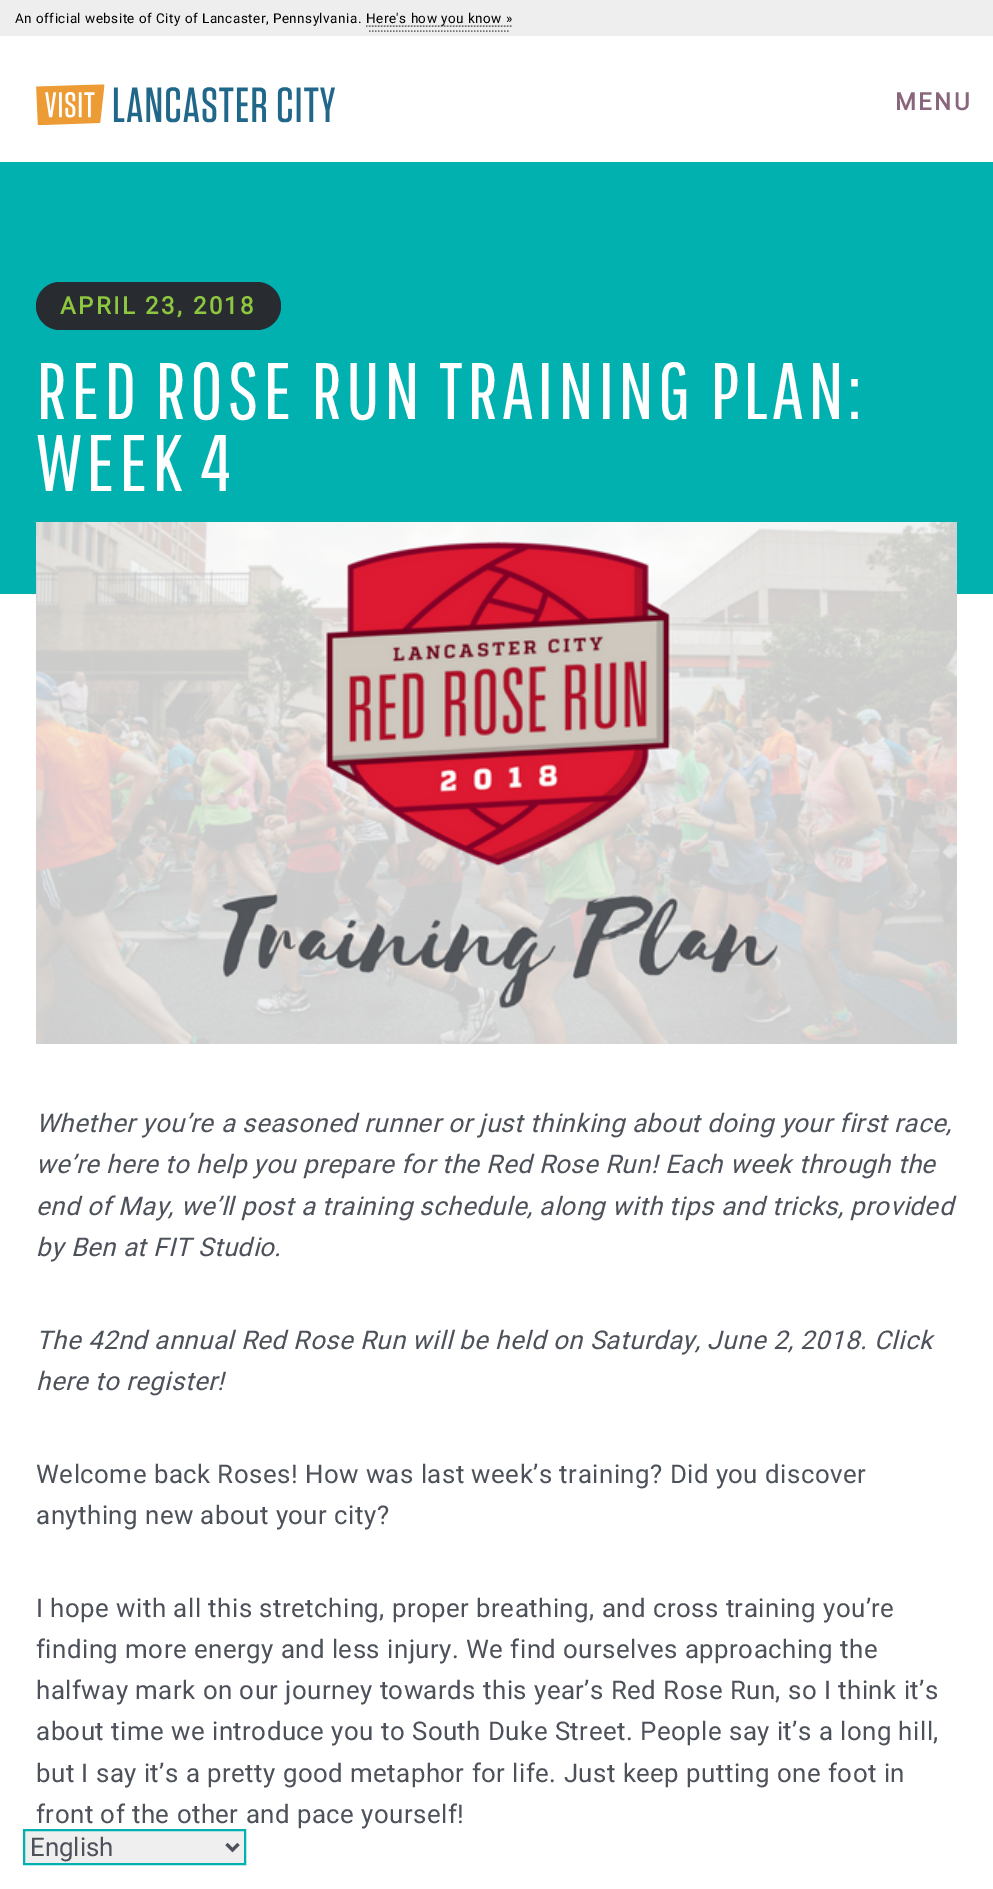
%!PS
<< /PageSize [993 1889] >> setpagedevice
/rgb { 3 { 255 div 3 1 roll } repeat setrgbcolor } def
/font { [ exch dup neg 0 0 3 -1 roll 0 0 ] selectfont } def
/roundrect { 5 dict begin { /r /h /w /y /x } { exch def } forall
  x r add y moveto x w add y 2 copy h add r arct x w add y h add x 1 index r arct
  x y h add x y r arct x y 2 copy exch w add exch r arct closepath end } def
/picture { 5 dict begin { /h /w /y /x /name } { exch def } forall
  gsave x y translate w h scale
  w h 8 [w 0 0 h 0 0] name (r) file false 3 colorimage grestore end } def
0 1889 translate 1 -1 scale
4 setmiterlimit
255 255 255 rgb
0 0 993 1889 rectfill
238 238 238 rgb
0 0 993 36 rectfill
113 113 116 rgb
1.5 setlinewidth
[1.5 1.5] 0 setdash
369 31 moveto 508.5 31 lineto stroke
366 26 moveto 513 26 lineto stroke
(img/1.rgb) 36 84 299 42 picture
0 177 176 rgb
0 162 993 432 rectfill
40 43 48 rgb
36 282 245 48 24 roundrect fill
(img/2.rgb) 36 522 921 522 picture
239 239 239 rgb
24 1830 moveto 245 1830 lineto 245 1864 lineto 24 1864 lineto closepath gsave fill grestore
0 177 176 rgb
2 setlinewidth
[] 0 setdash
stroke
76 81 90 rgb
3 setlinewidth
226.5 1844 moveto 232.5 1850 lineto 238.5 1844 lineto stroke
/Roboto-Regular 13.5 font
0 0 0 rgb
15 23 moveto 0.48 0 (An official website of City of Lancaster, Pennsylvania.) ashow
366 23 moveto 0.48 0 (Here's how you know ») ashow
/Roboto-Bold 24 font
138 102 126 rgb
895 110 moveto 2.4 0 (MENU) ashow
141 198 63 rgb
60 314 moveto 2.4 0 (APRIL 23, 2018) ashow
/PathwayGothicOne-Regular 79.9 font
255 255 255 rgb
36 419 moveto 4 0 (RED ROSE RUN TRAINING PLAN:) ashow
36 491 moveto 4 0 (WEEK 4) ashow
/Roboto-Italic 25.8 font
76 81 90 rgb
36 1132 moveto 0.48 0 (Whether you’re a seasoned runner or just thinking about doing your first race,) ashow
36 1173 moveto 0.48 0 (we’re here to help you prepare for the Red Rose Run! Each week through the) ashow
36 1215 moveto 0.48 0 (end of May, we’ll post a training schedule, along with tips and tricks, provided) ashow
36 1256 moveto 0.48 0 (by Ben at FIT Studio.) ashow
36 1349 moveto 0.48 0 (The 42nd annual Red Rose Run will be held on Saturday, June 2, 2018. Click) ashow
36 1390 moveto 0.48 0 (here to register!) ashow
/Roboto-Regular 25.8 font
36 1483 moveto 0.48 0 (Welcome back Roses! How was last week’s training? Did you discover) ashow
36 1524 moveto 0.48 0 (anything new about your city?) ashow
36 1617 moveto 0.48 0 (I hope with all this stretching, proper breathing, and cross training you’re) ashow
36 1658 moveto 0.48 0 (finding more energy and less injury. We find ourselves approaching the) ashow
36 1699 moveto 0.48 0 (halfway mark on our journey towards this year’s Red Rose Run, so I think it’s) ashow
36 1740 moveto 0.48 0 (about time we introduce you to South Duke Street. People say it’s a long hill,) ashow
36 1782 moveto 0.48 0 (but I say it’s a pretty good metaphor for life. Just keep putting one foot in) ashow
36 1823 moveto 0.48 0 (front of the other and pace yourself!) ashow
30 1856 moveto (English) show
showpage
